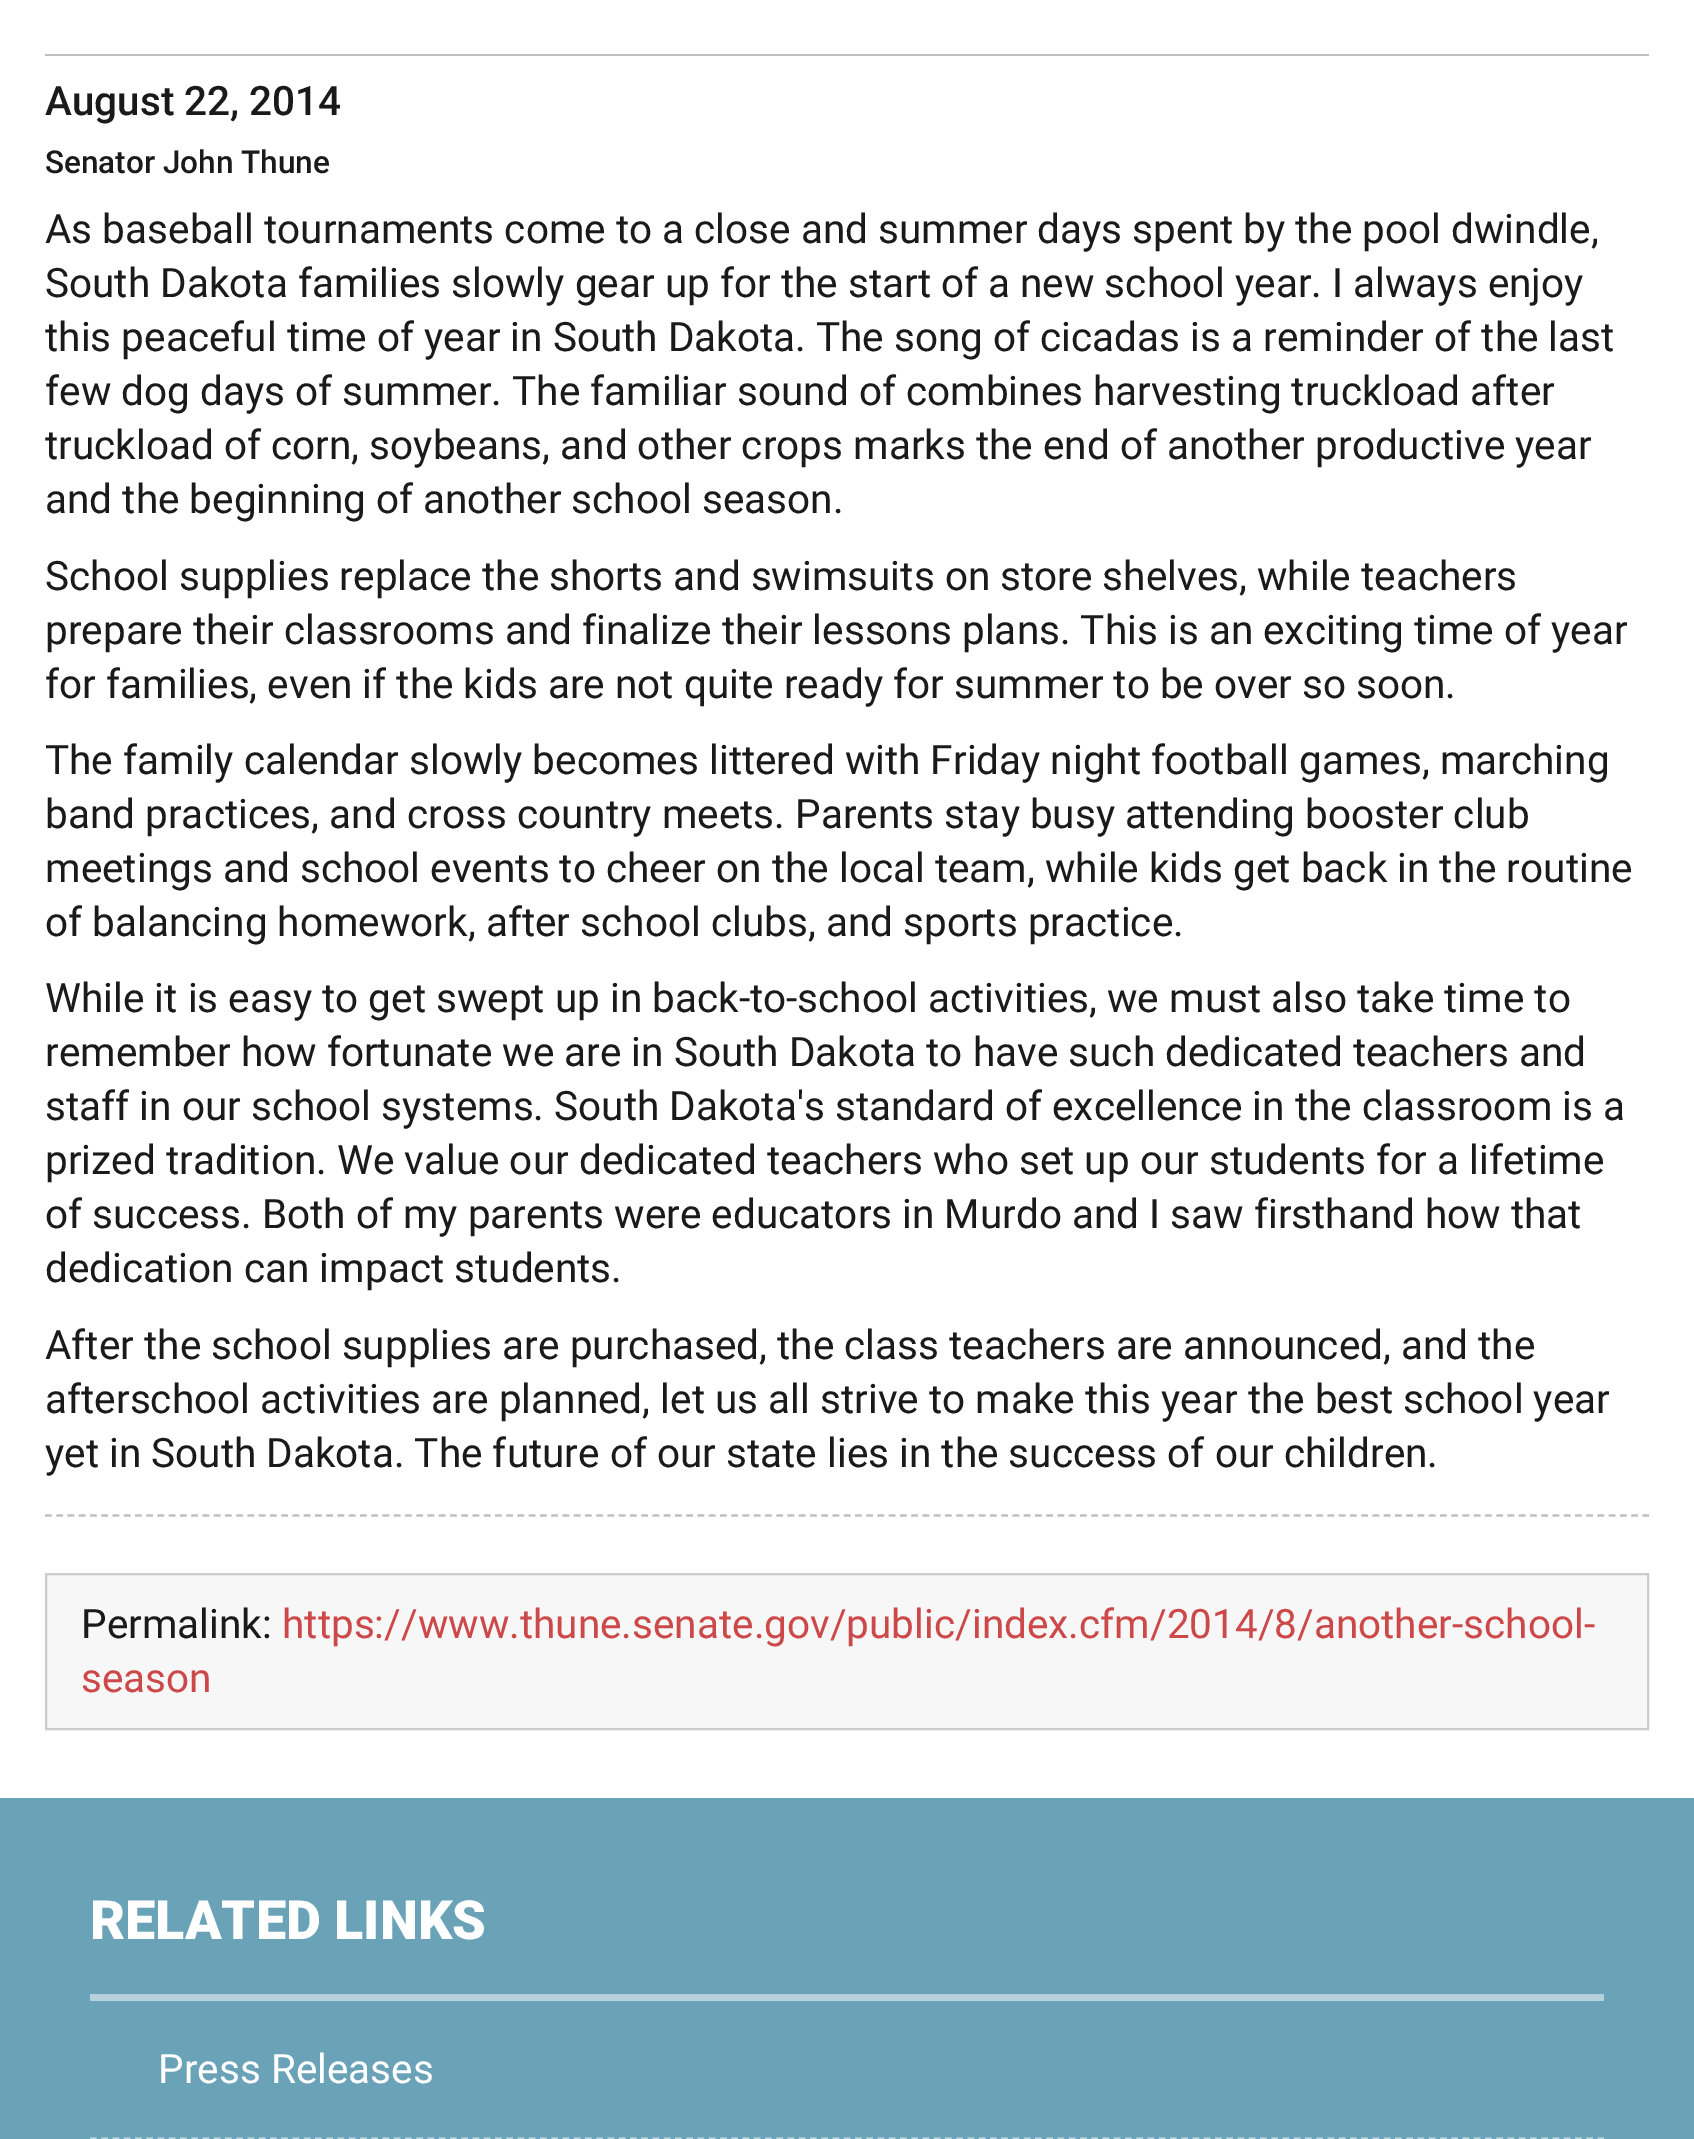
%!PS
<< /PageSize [1694 2139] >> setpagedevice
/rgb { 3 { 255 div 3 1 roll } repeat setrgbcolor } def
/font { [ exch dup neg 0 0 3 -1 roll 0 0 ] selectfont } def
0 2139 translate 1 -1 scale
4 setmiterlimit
255 255 255 rgb
0 0 1694 2139 rectfill
191 191 191 rgb
45 54 1604 2 rectfill
2.2 setlinewidth
[6.75 4.5] 0 setdash
45 1515.5 moveto 1649 1515.5 lineto stroke
247 247 247 rgb
46 1574 moveto 1648 1574 lineto 1648 1729 lineto 46 1729 lineto closepath gsave fill grestore
204 204 204 rgb
2 setlinewidth
[] 0 setdash
stroke
106 162 184 rgb
0 1798 1694 341 rectfill
181 209 220 rgb
90 1994 1514 7 rectfill
2.2 setlinewidth
[6.75 4.5] 0 setdash
90 2138.5 moveto 1604 2138.5 lineto stroke
/Roboto-Medium 40.5 font
26 26 26 rgb
45 115 moveto (August 22, 2014) show
/Roboto-Medium 31.5 font
45 173 moveto (Senator John Thune) show
/Roboto-Regular 40.5 font
[
  [(As baseball tournaments come to a close and summer days spent by the pool dwindle,) 45 243]
  [(South Dakota families slowly gear up for the start of a new school year. I always enjoy) 45 297]
  [(this peaceful time of year in South Dakota. The song of cicadas is a reminder of the last) 45 351]
  [(few dog days of summer. The familiar sound of combines harvesting truckload after) 45 405]
  [(truckload of corn, soybeans, and other crops marks the end of another productive year) 45 459]
  [(and the beginning of another school season.) 45 513]
  [(School supplies replace the shorts and swimsuits on store shelves, while teachers) 45 590]
  [(prepare their classrooms and finalize their lessons plans. This is an exciting time of year) 45 644]
  [(for families, even if the kids are not quite ready for summer to be over so soon.) 45 698]
  [(The family calendar slowly becomes littered with Friday night football games, marching) 45 774]
  [(band practices, and cross country meets. Parents stay busy attending booster club) 45 828]
  [(meetings and school events to cheer on the local team, while kids get back in the routine) 45 882]
  [(of balancing homework, after school clubs, and sports practice.) 45 936]
  [(While it is easy to get swept up in back-to-school activities, we must also take time to) 45 1012]
  [(remember how fortunate we are in South Dakota to have such dedicated teachers and) 45 1066]
  [(staff in our school systems. South Dakota's standard of excellence in the classroom is a) 45 1120]
  [(prized tradition. We value our dedicated teachers who set up our students for a lifetime) 45 1174]
  [(of success. Both of my parents were educators in Murdo and I saw firsthand how that) 45 1228]
  [(dedication can impact students.) 45 1282]
  [(After the school supplies are purchased, the class teachers are announced, and the) 45 1359]
  [(afterschool activities are planned, let us all strive to make this year the best school year) 45 1413]
  [(yet in South Dakota. The future of our state lies in the success of our children.) 45 1467]
  [(Permalink:) 81 1638]
] { aload pop moveto show } forall
204 72 73 rgb
282 1638 moveto (https://www.thune.senate.gov/public/index.cfm/2014/8/another-school-) show
81 1692 moveto (season) show
/Roboto-Black 54 font
255 255 255 rgb
90 1939 moveto (RELATED LINKS) show
/Roboto-Regular 40.5 font
158 2083 moveto (Press Releases) show
showpage
